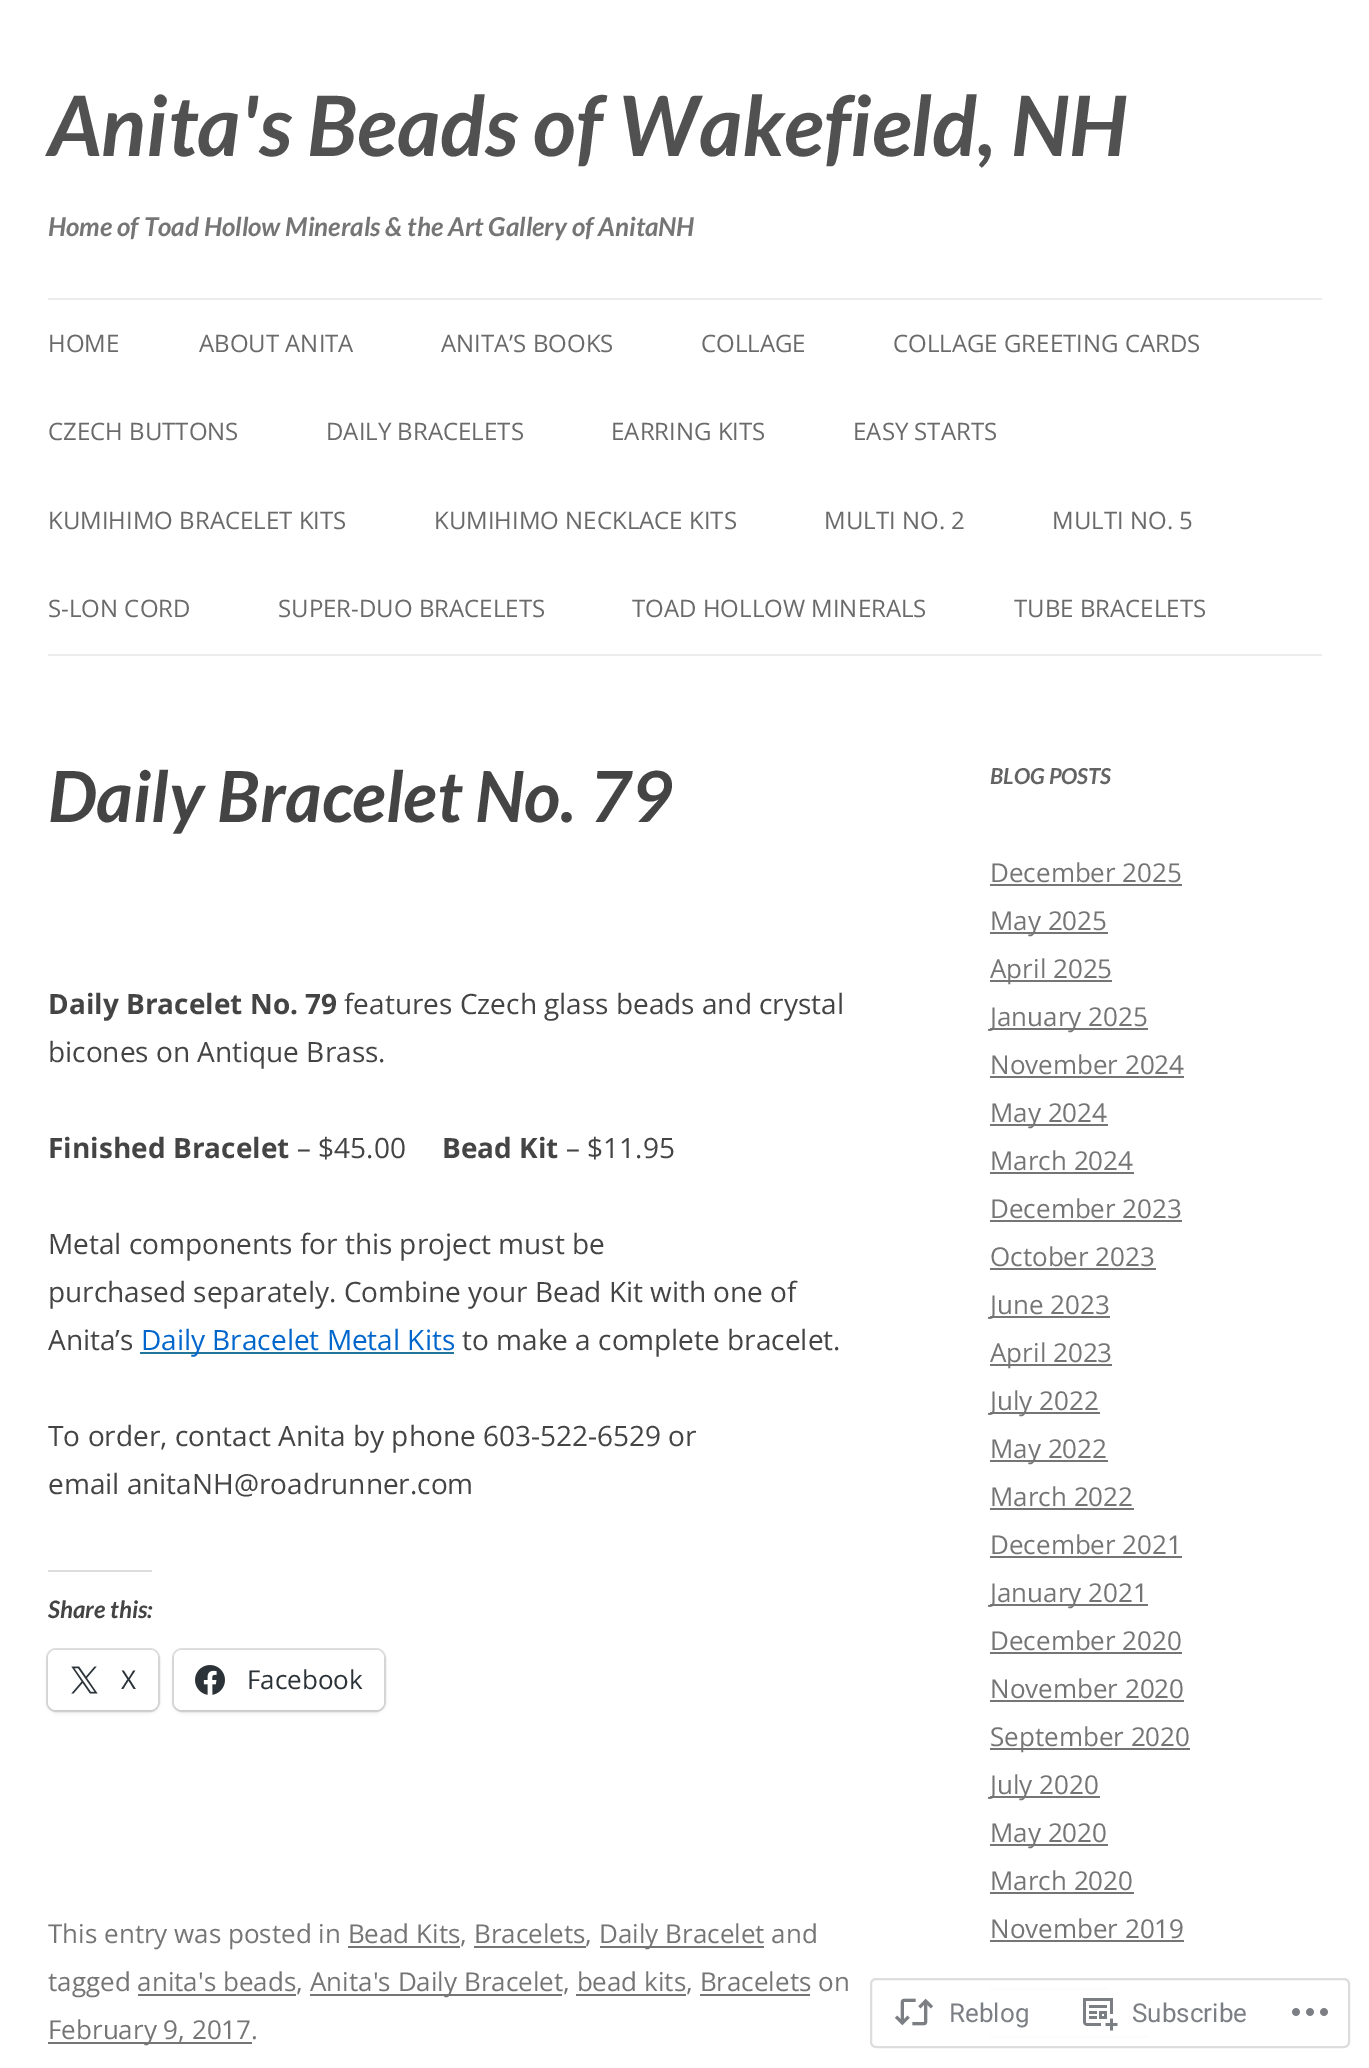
%!PS
<< /PageSize [1369 2068] /PageUsesTransparency true >> setpagedevice
/rgb { 3 { 255 div 3 1 roll } repeat setrgbcolor } def
/font { [ exch dup neg 0 0 3 -1 roll 0 0 ] selectfont } def
/alpha { dup .setfillconstantalpha .setstrokeconstantalpha } def
/roundrect { 5 dict begin { /r /h /w /y /x } { exch def } forall
  x r add y moveto x w add y 2 copy h add r arct x w add y h add x 1 index r arct
  x y h add x y r arct x y 2 copy exch w add exch r arct closepath end } def
/shadow { 12 dict begin { /a /b /q /h /w /y /x } { exch def } forall gsave /was 0 def
  9 -2 -9 { dup b mul 4 div /e exch def 1 sub .425 mul 2.718 exch exp 1 add a .99 .min exch div /now exch def
    1 1 now sub 1 was sub div sub alpha /was now def
    w h .min e 2 mul add 0 gt { x e sub y e sub w e 2 mul add h e 2 mul add
      q e add b .6 mul add w h .min 2 div e add .min 0 .max roundrect fill } if } for grestore end } def
/picture { 5 dict begin { /h /w /y /x /name } { exch def } forall
  gsave x y translate w h scale
  w h 8 [w 0 0 h 0 0] name (r) file false 3 colorimage grestore end } def
0 .pushpdf14devicefilter
0 2068 translate 1 -1 scale
4 setmiterlimit
255 255 255 rgb
0 0 1369 2068 rectfill
[
  [48 298 1274 2 237 237 237]
  [48 654 1274 2 237 237 237]
  [140 1352 314 2 33 117 155]
  [48 1570 104 2 220 220 222]
] { aload pop rgb rectfill } forall
224 224 224 rgb
2 setlinewidth
47 1649 112 62 9 roundrect stroke
0 0 0 rgb
48 1652 110 60 8 2 0.12 shadow
255 255 255 rgb
48 1650 110 60 8 roundrect fill
(img/1.rgb) 71 1666 27 28 picture
224 224 224 rgb
173 1649 212 62 9 roundrect stroke
0 0 0 rgb
174 1652 210 60 8 2 0.12 shadow
255 255 255 rgb
174 1650 210 60 8 roundrect fill
(img/2.rgb) 195 1665 30 30 picture
[
  [600 1946 164 2 117 117 117]
  [348 1946 112 2 117 117 117]
  [474 1946 112 2 117 117 117]
  [310 1994 252 2 117 117 117]
  [138 1994 158 2 117 117 117]
  [576 1994 110 2 117 117 117]
  [700 1994 110 2 117 117 117]
  [48 2042 204 2 117 117 117]
  [990 884 192 2 117 117 117]
  [990 932 118 2 117 117 117]
  [990 980 122 2 117 117 117]
  [990 1028 158 2 117 117 117]
  [990 1076 194 2 117 117 117]
  [990 1124 118 2 117 117 117]
  [990 1172 144 2 117 117 117]
  [990 1220 192 2 117 117 117]
  [990 1268 166 2 117 117 117]
  [990 1316 120 2 117 117 117]
  [990 1364 122 2 117 117 117]
  [990 1412 110 2 117 117 117]
  [990 1460 118 2 117 117 117]
  [990 1508 144 2 117 117 117]
  [990 1556 192 2 117 117 117]
  [990 1604 158 2 117 117 117]
  [990 1652 192 2 117 117 117]
  [990 1700 194 2 117 117 117]
  [990 1748 200 2 117 117 117]
  [990 1796 110 2 117 117 117]
  [990 1844 118 2 117 117 117]
  [990 1892 144 2 117 117 117]
  [990 1940 194 2 117 117 117]
  [990 1988 118 2 117 117 117]
  [990 2036 158 2 117 117 117]
] { aload pop rgb rectfill } forall
0.98 alpha
255 255 255 rgb
870 1978 480 70 6 roundrect fill
220 220 222 rgb
871 1979 478 68 5 roundrect stroke
1 alpha
(img/3.rgb) 894 1998 40 28 picture
(img/4.rgb) 1083 1998 35 33 picture
(img/5.rgb) 1292 2008 36 8 picture
/Lato-BoldItalic 83.25 font
81 81 81 rgb
48 156 moveto (Anita's Beads of Wakefield, NH) show
/Lato-BoldItalic 26 font
117 117 117 rgb
48 236 moveto (Home of Toad Hollow Minerals & the Art Gallery of AnitaNH) show
/OpenSans-Regular 24 font
106 106 106 rgb
[
  [(HOME) 48 352]
  [(ABOUT ANITA) 199 352]
  [(ANITA’S BOOKS) 441 352]
  [(COLLAGE) 701 352]
  [(COLLAGE GREETING CARDS) 893 352]
  [(CZECH BUTTONS) 48 440]
  [(DAILY BRACELETS) 326 440]
  [(EARRING KITS) 611 440]
  [(EASY STARTS) 853 440]
  [(KUMIHIMO BRACELET KITS) 48 529]
  [(KUMIHIMO NECKLACE KITS) 434 529]
  [(MULTI NO. 2) 824 529]
  [(MULTI NO. 5) 1052 529]
  [(S-LON CORD) 48 617]
  [(SUPER-DUO BRACELETS) 278 617]
  [(TOAD HOLLOW MINERALS) 632 617]
  [(TUBE BRACELETS) 1014 617]
] { aload pop moveto show } forall
/Lato-BoldItalic 70.5 font
68 68 68 rgb
48 822 moveto (Daily Bracelet No. 79) show
/OpenSans-Bold 28 font
48 1014 moveto (Daily Bracelet No. 79) show
/OpenSans-Regular 28 font
344 1014 moveto (features Czech glass beads and crystal) show
48 1062 moveto (bicones on Antique Brass.) show
/OpenSans-Bold 28 font
48 1158 moveto (Finished Bracelet) show
/OpenSans-Regular 28 font
297 1158 moveto (– $45.00) show
/OpenSans-Bold 28 font
442 1158 moveto (Bead Kit) show
/OpenSans-Regular 28 font
[
  [(– $11.95) 566 1158]
  [(Metal components for this project must be) 48 1254]
  [(purchased separately. Combine your Bead Kit with one of) 48 1302]
  [(Anita’s) 48 1350]
] { aload pop moveto show } forall
0 102 204 rgb
141 1350 moveto (Daily Bracelet Metal Kits) show
68 68 68 rgb
[
  [(to make a complete bracelet.) 462 1350]
  [(To order, contact Anita by phone 603-522-6529 or) 48 1446]
  [(email anitaNH@roadrunner.com) 48 1494]
] { aload pop moveto show } forall
/Lato-BoldItalic 24 font
48 1618 moveto (Share this:) show
/OpenSans-Regular 26 font
44 51 56 rgb
121 1689 moveto (X) show
247 1689 moveto (Facebook) show
117 117 117 rgb
[
  [(This entry was posted in Bead Kits, Bracelets,) 48 1943]
  [(Daily Bracelet and) 599 1943]
  [(tagged anita's beads,) 48 1991]
  [(Anita's Daily Bracelet, bead kits, Bracelets on) 310 1991]
  [(February 9, 2017.) 48 2039]
] { aload pop moveto show } forall
/Lato-BoldItalic 22 font
99 99 99 rgb
990 784 moveto (BLOG POSTS) show
/OpenSans-Regular 26 font
117 117 117 rgb
[
  [(December 2025) 990 882]
  [(May 2025) 990 930]
  [(April 2025) 990 978]
  [(January 2025) 990 1026]
  [(November 2024) 990 1074]
  [(May 2024) 990 1122]
  [(March 2024) 990 1170]
  [(December 2023) 990 1218]
  [(October 2023) 990 1266]
  [(June 2023) 990 1314]
  [(April 2023) 990 1362]
  [(July 2022) 990 1410]
  [(May 2022) 990 1458]
  [(March 2022) 990 1506]
  [(December 2021) 990 1554]
  [(January 2021) 990 1602]
  [(December 2020) 990 1650]
  [(November 2020) 990 1698]
  [(September 2020) 990 1746]
  [(July 2020) 990 1794]
  [(May 2020) 990 1842]
  [(March 2020) 990 1890]
  [(November 2019) 990 1938]
] { aload pop moveto show } forall
/Roboto-Regular 26 font
123 127 132 rgb
949 2022 moveto (Reblog) show
1132 2022 moveto (Subscribe) show
.poppdf14devicefilter showpage
